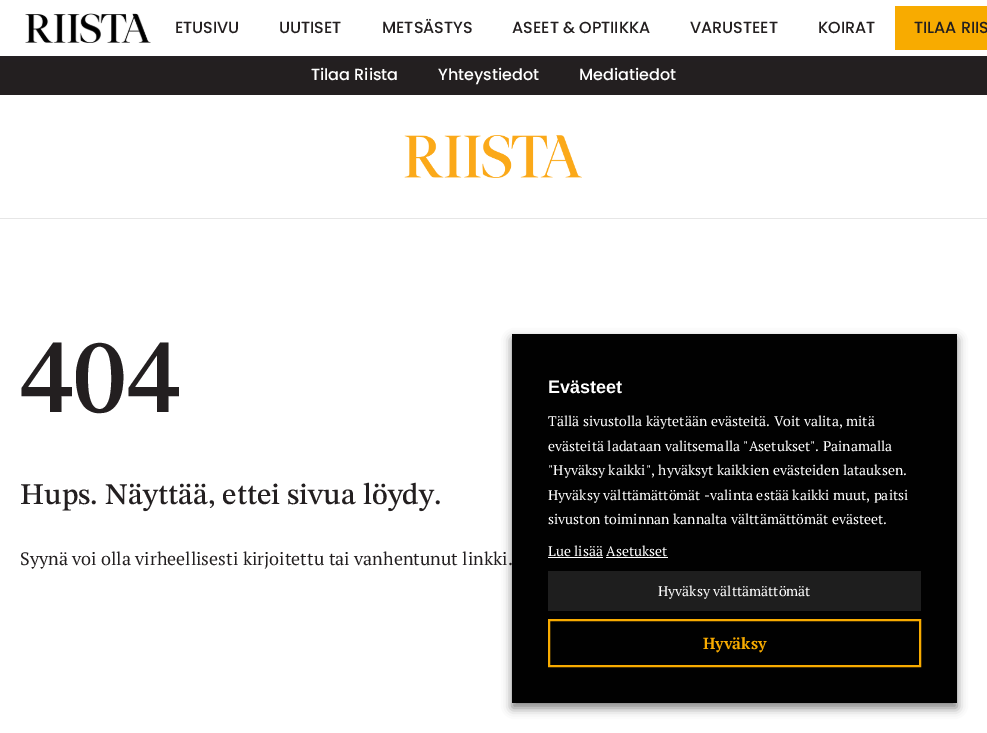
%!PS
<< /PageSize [987 733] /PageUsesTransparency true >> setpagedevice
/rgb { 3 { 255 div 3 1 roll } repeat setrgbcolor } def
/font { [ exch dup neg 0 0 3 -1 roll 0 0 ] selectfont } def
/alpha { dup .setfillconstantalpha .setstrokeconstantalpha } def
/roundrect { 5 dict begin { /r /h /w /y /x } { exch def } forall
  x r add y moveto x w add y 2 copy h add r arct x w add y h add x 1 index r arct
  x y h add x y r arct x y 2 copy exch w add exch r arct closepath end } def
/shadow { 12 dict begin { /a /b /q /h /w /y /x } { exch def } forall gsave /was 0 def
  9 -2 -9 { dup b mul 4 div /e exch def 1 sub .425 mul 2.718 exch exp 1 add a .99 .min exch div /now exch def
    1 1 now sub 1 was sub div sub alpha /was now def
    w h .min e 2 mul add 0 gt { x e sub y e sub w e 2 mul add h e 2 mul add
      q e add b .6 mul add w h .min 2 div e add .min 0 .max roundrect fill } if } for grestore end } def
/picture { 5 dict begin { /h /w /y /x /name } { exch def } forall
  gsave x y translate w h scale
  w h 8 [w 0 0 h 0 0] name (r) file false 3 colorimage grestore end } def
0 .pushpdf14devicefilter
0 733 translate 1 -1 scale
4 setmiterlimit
255 255 255 rgb
0 0 987 733 rectfill
35 31 32 rgb
0 56 987 39 rectfill
84 87 115 rgb
0 0 987 56 0 5 0.1 shadow
255 255 255 rgb
0 0 987 56 rectfill
(img/1.rgb) 25 13 126 30 picture
248 171 0 rgb
895 6 92 44 rectfill
230 230 230 rgb
0 218 987 1 rectfill
(img/2.rgb) 404 135 178 43 picture
0 0 0 rgb
512 339 445 369 0 5 0.5 shadow
[
  [512 334 445 369 1 1 1]
  [548 557 55 1 255 255 255]
  [606 557 62 1 255 255 255]
  [548 571 373 40 30 30 30]
] { aload pop rgb rectfill } forall
248 171 0 rgb
2 setlinewidth
549 620 371 46 rectstroke
/Poppins-Medium 16 font
35 31 32 rgb
[
  [(ETUSIVU) 175 33]
  [(UUTISET) 279 33]
  [(METSÄSTYS) 382 33]
  [(ASEET & OPTIIKKA) 512 33]
  [(VARUSTEET) 690 33]
  [(KOIRAT) 818 33]
  [(TILAA RIIS) 914 33]
] { aload pop moveto show } forall
255 255 255 rgb
[
  [(Tilaa Riista) 311 80]
  [(Yhteystiedot) 438 80]
  [(Mediatiedot) 579 80]
] { aload pop moveto show } forall
/STIXTwoText-Medium 108 font
35 31 32 rgb
20 412 moveto (404) show
/STIXTwoText-Medium 30 font
20 504 moveto (Hups. Näyttää, ettei sivua löydy.) show
/PTSerif-Regular 18 font
20 565 moveto (Syynä voi olla virheellisesti kirjoitettu tai vanhentunut linkki.) show
/LiberationSans-Bold 18 font
255 255 255 rgb
548 393 moveto (Evästeet) show
/PTSerif-Regular 14 font
[
  [(Tällä sivustolla käytetään evästeitä. Voit valita, mitä) 548 426]
  [(evästeitä ladataan valitsemalla "Asetukset". Painamalla) 548 451]
  [("Hyväksy kaikki", hyväksyt kaikkien evästeiden latauksen.) 548 475]
  [(Hyväksy välttämättömät -valinta estää kaikki muut, paitsi) 548 500]
  [(sivuston toiminnan kannalta välttämättömät evästeet.) 548 524]
  [(Lue lisää Asetukset) 548 556]
  [(Hyväksy välttämättömät) 658 596]
] { aload pop moveto show } forall
/PTSerif-Bold 16 font
248 171 0 rgb
703 649 moveto (Hyväksy) show
.poppdf14devicefilter showpage
